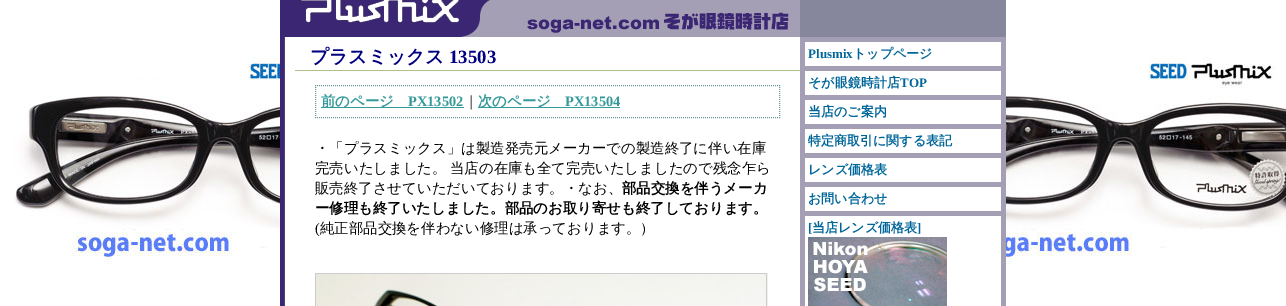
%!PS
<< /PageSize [1286 306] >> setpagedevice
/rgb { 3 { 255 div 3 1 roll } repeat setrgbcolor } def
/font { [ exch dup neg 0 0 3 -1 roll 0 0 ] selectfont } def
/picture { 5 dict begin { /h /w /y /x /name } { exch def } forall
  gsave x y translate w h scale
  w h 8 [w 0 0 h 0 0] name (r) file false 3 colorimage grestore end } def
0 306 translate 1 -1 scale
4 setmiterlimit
255 255 255 rgb
0 0 1286 306 rectfill
(img/1.rgb) 14 56 1272 208 picture
(img/2.rgb) 280 0 520 37 picture
134 134 157 rgb
800 0 206 37 rectfill
(img/3.rgb) 280 37 520 269 picture
174 191 137 rgb
295 70 505 1 rectfill
102 153 153 rgb
[1 1] 0 setdash
315 85.5 moveto 780 85.5 lineto stroke
779.5 85 moveto 779.5 118 lineto stroke
315 117.5 moveto 780 117.5 lineto stroke
315.5 85 moveto 315.5 118 lineto stroke
51 153 153 rgb
321 107 143 1 rectfill
478 107 142 1 rectfill
204 204 204 rgb
[] 0 setdash
315.5 273.5 451 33 rectstroke
(img/4.rgb) 316 274 450 32 picture
[
  [800 37 206 269 164 159 181]
  [805 42 196 24 255 255 255]
  [805 71 196 24 255 255 255]
  [805 100 196 24 255 255 255]
  [805 129 196 24 255 255 255]
  [805 158 196 24 255 255 255]
  [805 187 196 24 255 255 255]
  [805 216 196 90 255 255 255]
] { aload pop rgb rectfill } forall
(img/5.rgb) 808 237 139 69 picture
/WenQuanYiZenHei-Bold 18.75 font
0 0 128 rgb
310 63 moveto (プラスミックス) show
/LiberationSerif-Bold 18.75 font
449 63 moveto (13503) show
/WenQuanYiZenHei-Bold 14.4 font
51 153 153 rgb
321 106 moveto (前のページ) show
/LiberationSerif-Bold 14.4 font
408 106 moveto (PX13502) show
/WenQuanYiZenHei-Medium 14.4 font
0 0 0 rgb
464 106 moveto (｜) show
/WenQuanYiZenHei-Bold 14.4 font
51 153 153 rgb
478 106 moveto (次のページ) show
/LiberationSerif-Bold 14.4 font
565 106 moveto (PX13504) show
/WenQuanYiZenHei-Medium 14.4 font
0 0 0 rgb
[
  [(・「プラスミックス」は製造発売元メーカーでの製造終了に伴い在庫) 315 153]
  [(完売いたしました。) 315 173]
  [(当店の在庫も全て完売いたしましたので残念乍ら) 450 173]
  [(販売終了させていただいております。・なお、) 315 193]
] { aload pop moveto show } forall
/WenQuanYiZenHei-Bold 14.4 font
622 193 moveto (部品交換を伴うメーカ) show
315 213 moveto (ー修理も終了いたしました。部品のお取り寄せも終了しております。) show
/LiberationSerif-Regular 14.4 font
315 233 moveto (\() show
/WenQuanYiZenHei-Medium 14.4 font
320 233 moveto (純正部品交換を伴わない修理は承っております。）) show
/LiberationSerif-Bold 13 font
0 102 153 rgb
808 58 moveto (Plusmix) show
/WenQuanYiZenHei-Bold 13 font
853 58 moveto (トップページ) show
808 87 moveto (そが眼鏡時計店) show
/LiberationSerif-Bold 13 font
900 87 moveto (TOP) show
/WenQuanYiZenHei-Bold 13 font
[
  [(当店のご案内) 808 116]
  [(特定商取引に関する表記) 808 145]
  [(レンズ価格表) 808 174]
  [(お問い合わせ) 808 203]
] { aload pop moveto show } forall
/LiberationSerif-Bold 13 font
808 232 moveto ([) show
/WenQuanYiZenHei-Bold 13 font
812 232 moveto (当店レンズ価格表) show
/LiberationSerif-Bold 13 font
917 232 moveto (]) show
showpage
